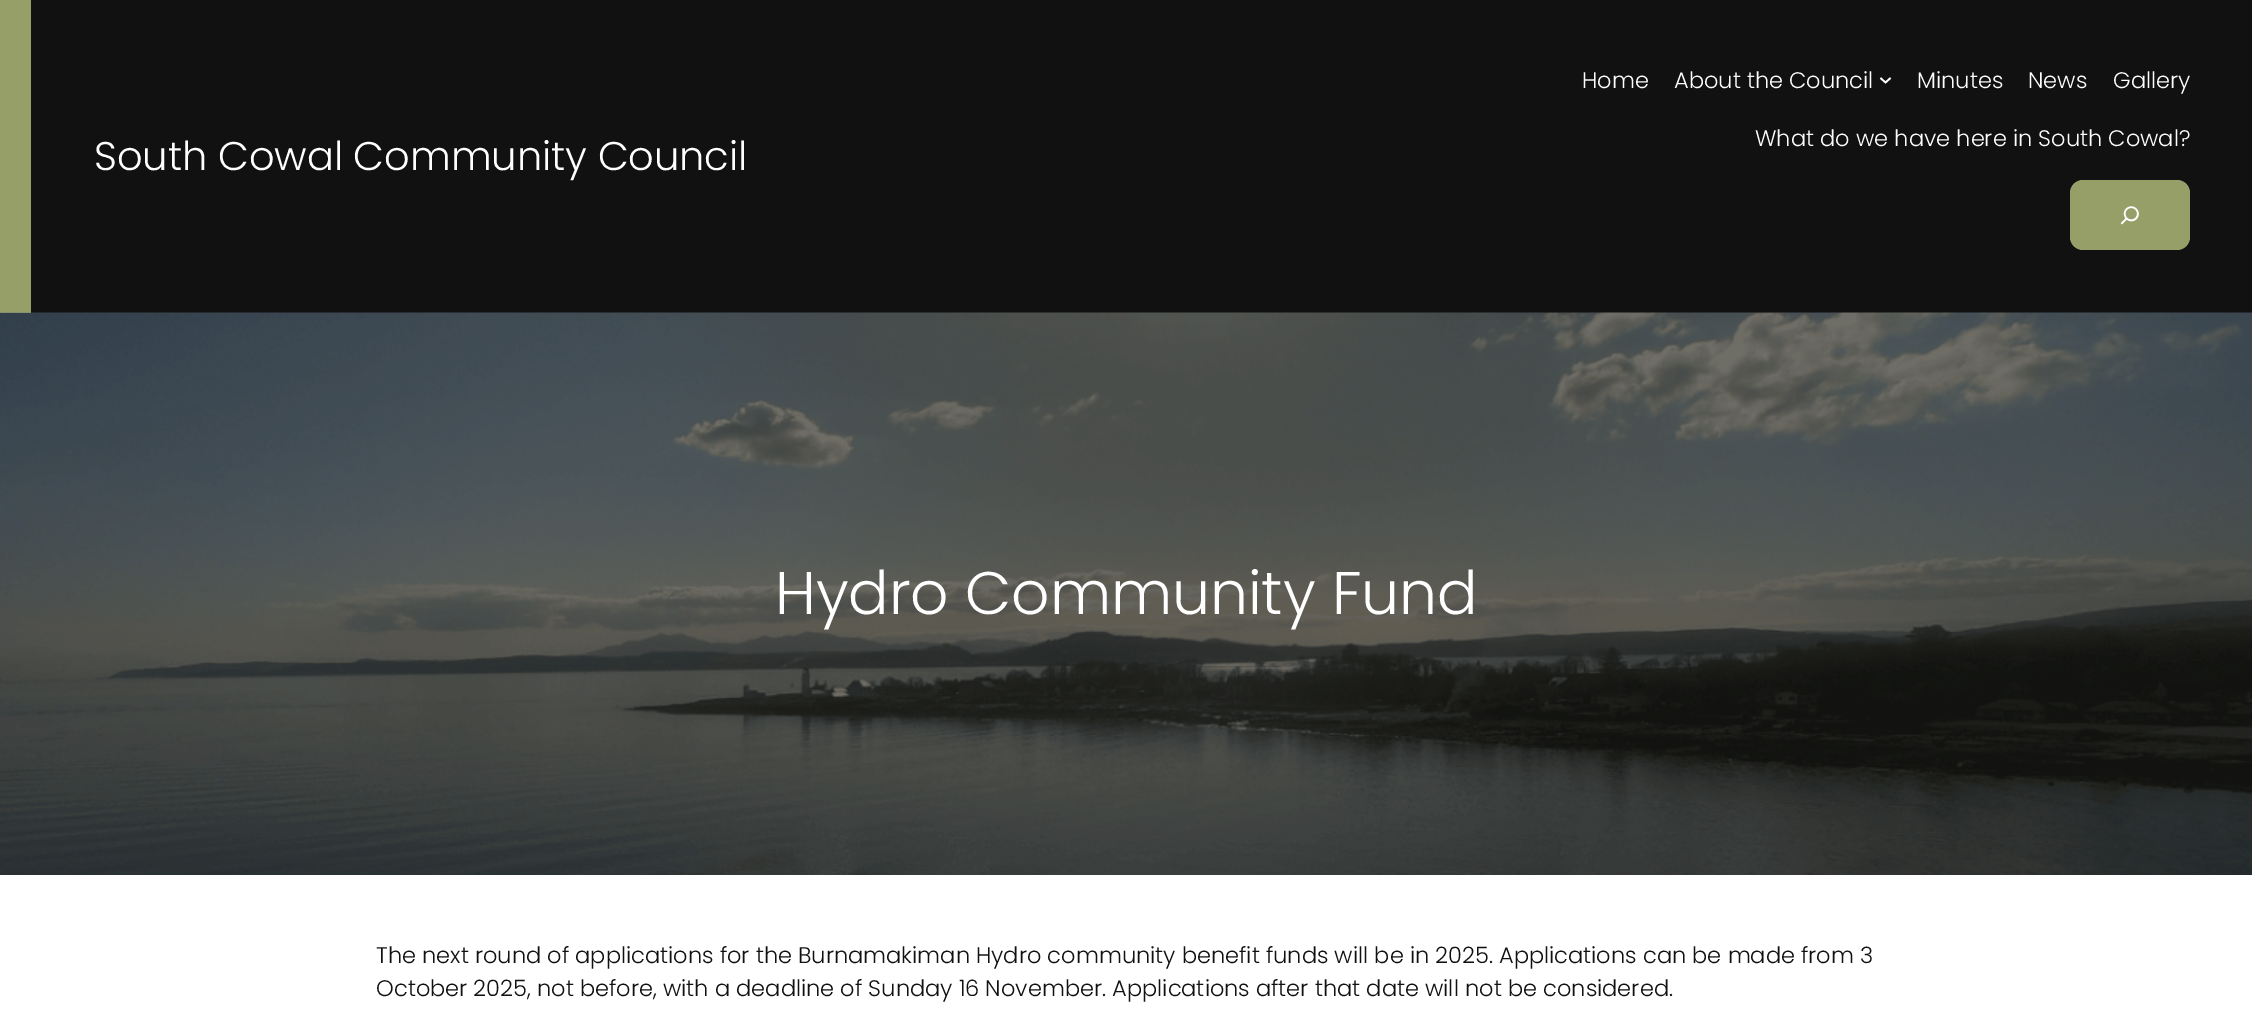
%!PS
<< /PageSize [2252 1022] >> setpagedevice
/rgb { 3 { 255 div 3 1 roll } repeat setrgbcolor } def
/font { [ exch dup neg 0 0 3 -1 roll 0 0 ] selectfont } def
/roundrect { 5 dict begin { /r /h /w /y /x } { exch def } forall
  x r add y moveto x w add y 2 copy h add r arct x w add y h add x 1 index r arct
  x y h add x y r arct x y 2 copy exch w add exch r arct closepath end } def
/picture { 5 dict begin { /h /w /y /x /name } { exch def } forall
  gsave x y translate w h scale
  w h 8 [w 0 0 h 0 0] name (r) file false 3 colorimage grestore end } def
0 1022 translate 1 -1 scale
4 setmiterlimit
255 255 255 rgb
0 0 2252 1022 rectfill
17 17 17 rgb
31 0 2221 313 rectfill
151 159 105 rgb
0 0 31 313 rectfill
255 255 255 rgb
1.7 setlinewidth
1880.5 78 moveto 1885.5 82.5 lineto 1890.5 78 lineto stroke
151 159 105 rgb
2070 180 120 70 13 roundrect fill
(img/1.rgb) 2120 206 19 19 picture
(img/2.rgb) 0 312 2252 563 picture
/Poppins-Light 22.5 font
255 255 255 rgb
[
  [(Home) 1582 88]
  [(About the Council) 1674 88]
  [(Minutes) 1917 88]
  [(News) 2028 88]
  [(Gallery) 2113 88]
  [(What do we have here in South Cowal?) 1755 146]
] { aload pop moveto show } forall
/Poppins-Light 40 font
94 170 moveto -0.1 0 (South Cowal Community Council) ashow
/Poppins-Light 60 font
775 614 moveto -0.1 0 (Hydro Community Fund) ashow
/Poppins-Light 22.5 font
17 17 17 rgb
376 963 moveto (The next round of applications for the Burnamakiman Hydro community benefit funds will be in 2025. Applications can be made from 3) show
376 996 moveto (October 2025, not before, with a deadline of Sunday 16 November. Applications after that date will not be considered.) show
showpage
